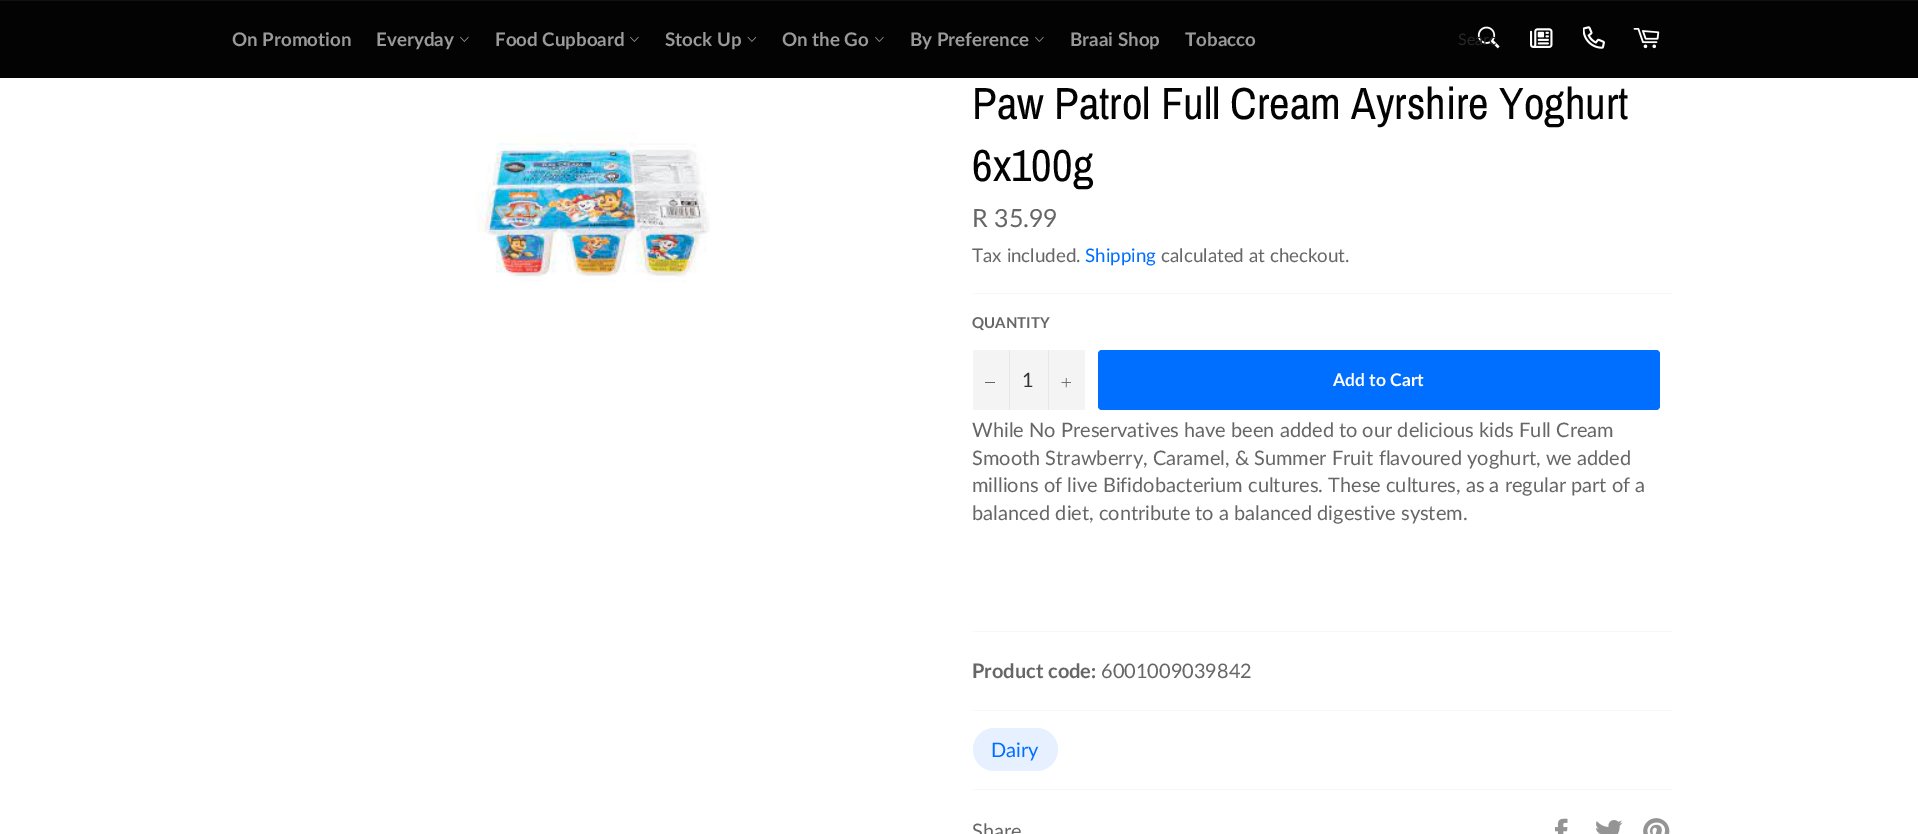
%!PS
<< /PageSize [1918 834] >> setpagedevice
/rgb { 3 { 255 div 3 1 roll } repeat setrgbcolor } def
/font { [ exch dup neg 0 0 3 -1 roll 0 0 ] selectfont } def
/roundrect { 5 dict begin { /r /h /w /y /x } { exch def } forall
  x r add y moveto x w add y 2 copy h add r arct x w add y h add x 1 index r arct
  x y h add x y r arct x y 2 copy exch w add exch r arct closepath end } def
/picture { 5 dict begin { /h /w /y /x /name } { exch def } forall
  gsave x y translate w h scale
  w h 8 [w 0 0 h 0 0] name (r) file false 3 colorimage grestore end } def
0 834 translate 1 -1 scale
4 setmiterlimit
255 255 255 rgb
0 0 1918 834 rectfill
3 3 3 rgb
0 1 1918 77 rectfill
16 16 16 rgb
0 0 1918 1 rectfill
(img/1.rgb) 460 36 9 6 picture
(img/1.rgb) 630 36 9 6 picture
(img/2.rgb) 747 36 10 6 picture
(img/1.rgb) 875 36 9 6 picture
(img/1.rgb) 1035 36 9 6 picture
(img/3.rgb) 1477 26 23 23 picture
(img/4.rgb) 1530 28 23 20 picture
(img/5.rgb) 1583 26 22 23 picture
(img/6.rgb) 1633 28 27 21 picture
(img/7.rgb) 475 132 235 150 picture
[
  [973 293 700 1 247 247 247]
  [973 350 112 60 244 244 244]
  [1009 350 1 60 231 231 231]
  [985 382 10 1 102 102 102]
  [1048 350 1 60 231 231 231]
] { aload pop rgb rectfill } forall
(img/8.rgb) 1061 378 10 10 picture
0 110 255 rgb
1098 350 562 60 4 roundrect fill
247 247 247 rgb
973 631 700 1 rectfill
973 710 700 1 rectfill
230 240 255 rgb
973 728 85 43 21.5 roundrect fill
247 247 247 rgb
973 789 700 1 rectfill
(img/9.rgb) 1555 818 13 16 picture
(img/10.rgb) 1596 820 27 14 picture
(img/11.rgb) 1643 818 27 16 picture
/Lato-Bold 18.75 font
154 154 154 rgb
[
  [(On Promotion) 232 46]
  [(Everyday) 376 46]
  [(Food Cupboard) 495 46]
  [(Stock Up) 665 46]
  [(On the Go) 782 46]
  [(By Preference) 910 46]
  [(Braai Shop) 1070 46]
  [(Tobacco) 1185 46]
] { aload pop moveto show } forall
/Lato-Regular 16 font
38 38 38 rgb
1458 45 moveto (Searc) show
/ArchivoNarrow-Regular 45 font
3 3 3 rgb
972 119 moveto (Paw Patrol Full Cream Ayrshire Yoghurt) show
972 181 moveto (6x100g) show
/Lato-Regular 25 font
102 102 102 rgb
972 227 moveto (R 35.99) show
/Lato-Regular 18.75 font
972 262 moveto (Tax included.) show
0 110 255 rgb
1085 262 moveto (Shipping) show
102 102 102 rgb
1161 262 moveto (calculated at checkout.) show
/Lato-Bold 15 font
972 328 moveto (QUANTITY) show
/Lato-Regular 20 font
51 51 51 rgb
1022 387 moveto (1) show
/Lato-Bold 17.5 font
255 255 255 rgb
1333 386 moveto (Add to Cart) show
/Lato-Regular 20 font
102 102 102 rgb
[
  [(While No Preservatives have been added to our delicious kids Full Cream) 972 437]
  [(Smooth Strawberry, Caramel, & Summer Fruit flavoured yoghurt, we added) 972 465]
  [(millions of live Bifidobacterium cultures. These cultures, as a regular part of a) 972 492]
  [(balanced diet, contribute to a balanced digestive system.) 972 520]
] { aload pop moveto show } forall
/Lato-Bold 20 font
972 678 moveto (Product code:) show
/Lato-Regular 20 font
1101 678 moveto (6001009039842) show
0 110 255 rgb
991 757 moveto (Dairy) show
102 102 102 rgb
972 838 moveto (Share) show
showpage
